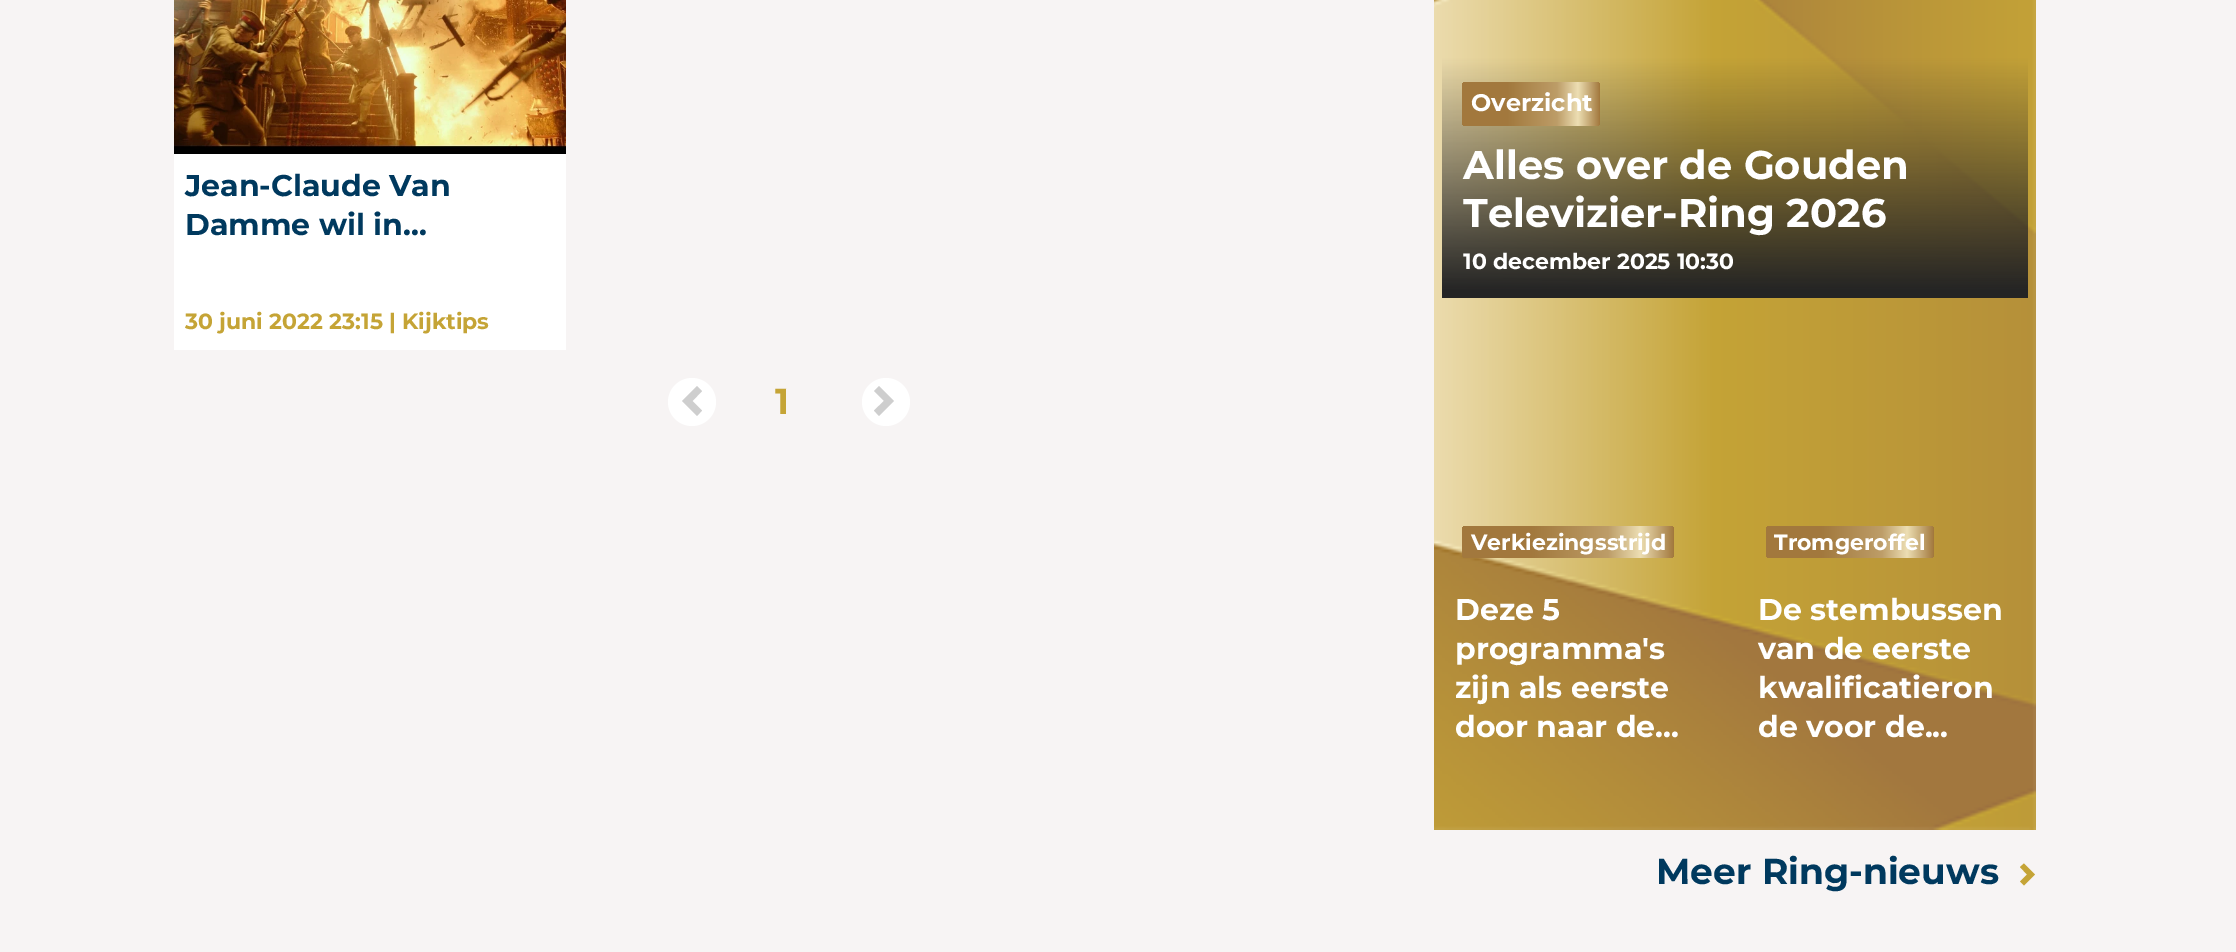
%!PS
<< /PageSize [2236 952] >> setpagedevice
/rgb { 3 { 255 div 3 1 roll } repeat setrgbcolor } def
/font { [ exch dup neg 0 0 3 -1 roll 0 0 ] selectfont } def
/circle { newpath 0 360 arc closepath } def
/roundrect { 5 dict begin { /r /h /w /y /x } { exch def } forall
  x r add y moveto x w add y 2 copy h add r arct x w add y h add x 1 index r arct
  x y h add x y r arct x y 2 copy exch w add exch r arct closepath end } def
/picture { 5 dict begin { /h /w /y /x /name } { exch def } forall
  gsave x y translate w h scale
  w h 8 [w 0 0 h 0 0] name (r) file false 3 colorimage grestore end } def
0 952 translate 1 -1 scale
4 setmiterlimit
247 244 244 rgb
0 0 2236 952 rectfill
255 255 255 rgb
174 154 392 196 rectfill
(img/1.rgb) 174 0 392 154 picture
692 402 24 circle fill
206 206 206 rgb
682 401 moveto 697 416 lineto 702 410.5 lineto 692.5 401 lineto 702 391 lineto 697 386 lineto closepath fill
255 255 255 rgb
886 402 24 circle fill
206 206 206 rgb
894 401 moveto 879 386 lineto 874 391 lineto 884 401 lineto 874 410.5 lineto 879 416 lineto closepath fill
(img/2.rgb) 1434 0 602 830 picture
gsave 1462 82 138 44 4 roundrect clip newpath
<< /ShadingType 2 /ColorSpace /DeviceRGB /Coords [1462 104 1600 104] /Extend [true true] /Function << /FunctionType 3 /Domain [0 1] /Functions [<< /FunctionType 2 /Domain [0 1] /C0 [0.635 0.471 0.239] /C1 [0.635 0.471 0.239] /N 1 >> << /FunctionType 2 /Domain [0 1] /C0 [0.635 0.471 0.239] /C1 [0.741 0.616 0.408] /N 1 >> << /FunctionType 2 /Domain [0 1] /C0 [0.741 0.616 0.408] /C1 [0.929 0.871 0.702] /N 1 >> << /FunctionType 2 /Domain [0 1] /C0 [0.929 0.871 0.702] /C1 [0.635 0.471 0.239] /N 1 >>] /Bounds [0.33 0.69 0.84] /Encode [0 1 0 1 0 1 0 1] >> >> shfill grestore
gsave 1462 526 212 32 4 roundrect clip newpath
<< /ShadingType 2 /ColorSpace /DeviceRGB /Coords [1462 542 1674 542] /Extend [true true] /Function << /FunctionType 3 /Domain [0 1] /Functions [<< /FunctionType 2 /Domain [0 1] /C0 [0.635 0.471 0.239] /C1 [0.635 0.471 0.239] /N 1 >> << /FunctionType 2 /Domain [0 1] /C0 [0.635 0.471 0.239] /C1 [0.741 0.616 0.408] /N 1 >> << /FunctionType 2 /Domain [0 1] /C0 [0.741 0.616 0.408] /C1 [0.929 0.871 0.702] /N 1 >> << /FunctionType 2 /Domain [0 1] /C0 [0.929 0.871 0.702] /C1 [0.635 0.471 0.239] /N 1 >>] /Bounds [0.33 0.69 0.84] /Encode [0 1 0 1 0 1 0 1] >> >> shfill grestore
gsave 1766 526 168 32 4 roundrect clip newpath
<< /ShadingType 2 /ColorSpace /DeviceRGB /Coords [1766 542 1934 542] /Extend [true true] /Function << /FunctionType 3 /Domain [0 1] /Functions [<< /FunctionType 2 /Domain [0 1] /C0 [0.635 0.471 0.239] /C1 [0.635 0.471 0.239] /N 1 >> << /FunctionType 2 /Domain [0 1] /C0 [0.635 0.471 0.239] /C1 [0.741 0.616 0.408] /N 1 >> << /FunctionType 2 /Domain [0 1] /C0 [0.741 0.616 0.408] /C1 [0.929 0.871 0.702] /N 1 >> << /FunctionType 2 /Domain [0 1] /C0 [0.929 0.871 0.702] /C1 [0.635 0.471 0.239] /N 1 >>] /Bounds [0.33 0.69 0.84] /Encode [0 1 0 1 0 1 0 1] >> >> shfill grestore
197 164 54 rgb
2035 874.5 moveto 2024 863.5 lineto 2020 867 lineto 2027 874.5 lineto 2020 881.5 lineto 2024 885.5 lineto closepath fill
/Montserrat-Bold 30 font
0 57 94 rgb
185 196 moveto (Jean-Claude Van) show
185 235 moveto (Damme wil in...) show
/Montserrat-Bold 22 font
197 164 54 rgb
185 329 moveto (30 juni 2022 23:15 | Kijktips) show
/Montserrat-Bold 36 font
775 414 moveto (1) show
/Montserrat-Bold 24 font
255 255 255 rgb
1471 111 moveto (Overzicht) show
/Montserrat-Bold 40 font
1463 179 moveto (Alles over de Gouden) show
1463 227 moveto (Televizier-Ring 2026) show
/Montserrat-Bold 22 font
1463 269 moveto (10 december 2025 10:30) show
1471 550 moveto (Verkiezingsstrijd) show
/Montserrat-Bold 30 font
[
  [(Deze 5) 1455 620]
  [(programma's) 1455 659]
  [(zijn als eerste) 1455 698]
  [(door naar de...) 1455 737]
] { aload pop moveto show } forall
/Montserrat-Bold 22 font
1774 550 moveto (Tromgeroffel) show
/Montserrat-Bold 30 font
[
  [(De stembussen) 1758 620]
  [(van de eerste) 1758 659]
  [(kwalificatieron) 1758 698]
  [(de voor de...) 1758 737]
] { aload pop moveto show } forall
/Montserrat-Bold 36 font
0 57 94 rgb
1656 884 moveto (Meer Ring-nieuws) show
showpage
